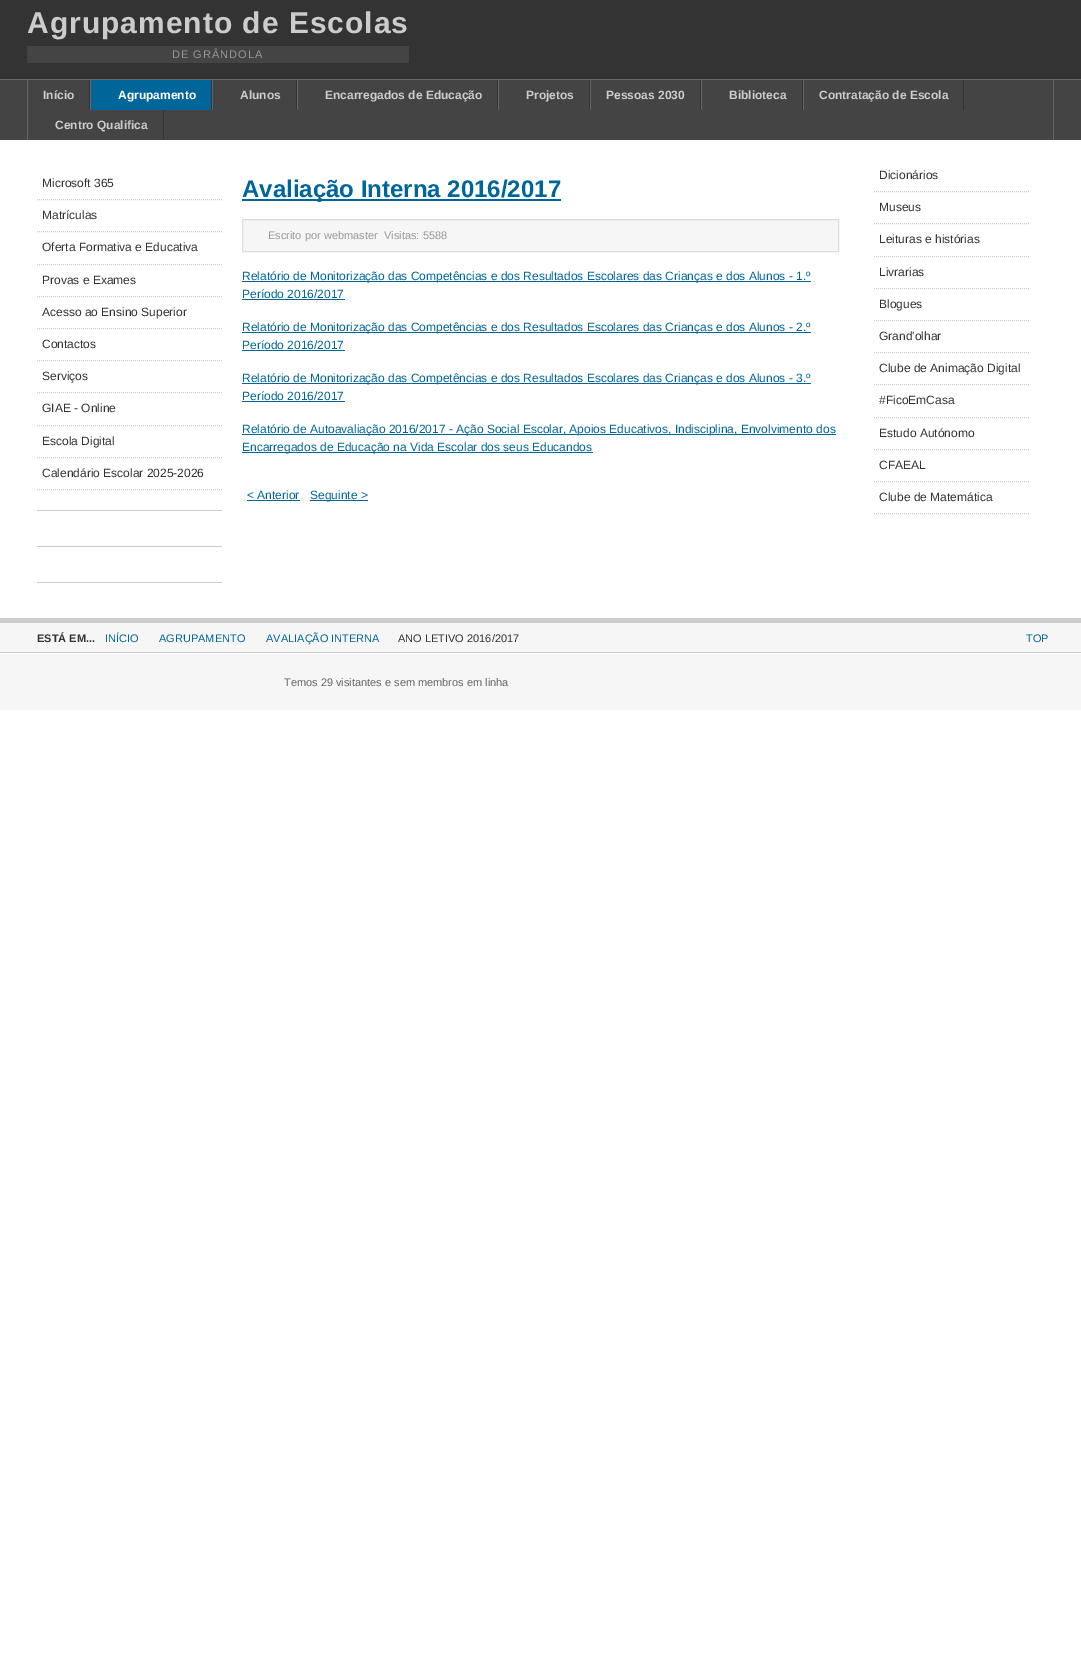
%!PS
<< /PageSize [1081 1677] >> setpagedevice
/rgb { 3 { 255 div 3 1 roll } repeat setrgbcolor } def
/font { [ exch dup neg 0 0 3 -1 roll 0 0 ] selectfont } def
0 1677 translate 1 -1 scale
4 setmiterlimit
255 255 255 rgb
0 0 1081 1677 rectfill
[
  [0 0 1081 79 51 51 51]
  [27 46 382 17 68 68 68]
  [0 80 1081 60 68 68 68]
  [0 79 1081 1 102 102 102]
  [1053 80 1 60 102 102 102]
  [89 80 1 30 51 51 51]
  [27 80 1 60 102 102 102]
  [91 80 120 30 0 102 153]
  [211 80 1 30 51 51 51]
  [90 80 1 30 102 102 102]
  [296 80 1 30 51 51 51]
  [212 80 1 30 102 102 102]
  [497 80 1 30 51 51 51]
  [297 80 1 30 102 102 102]
  [589 80 1 30 51 51 51]
  [498 80 1 30 102 102 102]
  [700 80 1 30 51 51 51]
  [590 80 1 30 102 102 102]
  [802 80 1 30 51 51 51]
  [701 80 1 30 102 102 102]
  [963 80 1 30 51 51 51]
  [803 80 1 30 102 102 102]
  [163 110 1 30 51 51 51]
  [0 618 1081 5 204 204 204]
  [37 510 185 1 204 204 204]
] { aload pop rgb rectfill } forall
[1 1] 0 setdash
37 199.5 moveto 222 199.5 lineto stroke
37 231.5 moveto 222 231.5 lineto stroke
37 264.5 moveto 222 264.5 lineto stroke
37 296.5 moveto 222 296.5 lineto stroke
37 328.5 moveto 222 328.5 lineto stroke
37 360.5 moveto 222 360.5 lineto stroke
37 392.5 moveto 222 392.5 lineto stroke
37 425.5 moveto 222 425.5 lineto stroke
37 457.5 moveto 222 457.5 lineto stroke
37 489.5 moveto 222 489.5 lineto stroke
[
  [37 546 185 1 204 204 204]
  [37 582 185 1 204 204 204]
  [242 199 319 2 0 102 153]
] { aload pop rgb rectfill } forall
246 246 246 rgb
242.5 219.5 moveto 838.5 219.5 lineto 838.5 251.5 lineto 242.5 251.5 lineto closepath gsave fill grestore
221 221 221 rgb
[] 0 setdash
stroke
[
  [242 281 569 1 0 102 153]
  [242 299 103 1 0 102 153]
  [242 332 569 1 0 102 153]
  [242 350 103 1 0 102 153]
  [242 383 569 1 0 102 153]
  [242 401 103 1 0 102 153]
  [242 434 594 1 0 102 153]
  [242 452 351 1 0 102 153]
  [247 500 53 1 0 102 153]
  [310 500 58 1 0 102 153]
] { aload pop rgb rectfill } forall
204 204 204 rgb
[1 1] 0 setdash
874 191.5 moveto 1029 191.5 lineto stroke
874 223.5 moveto 1029 223.5 lineto stroke
874 256.5 moveto 1029 256.5 lineto stroke
874 288.5 moveto 1029 288.5 lineto stroke
874 320.5 moveto 1029 320.5 lineto stroke
874 352.5 moveto 1029 352.5 lineto stroke
874 384.5 moveto 1029 384.5 lineto stroke
874 417.5 moveto 1029 417.5 lineto stroke
874 449.5 moveto 1029 449.5 lineto stroke
874 481.5 moveto 1029 481.5 lineto stroke
874 513.5 moveto 1029 513.5 lineto stroke
[
  [0 623 1081 29 246 246 246]
  [0 652 1081 1 204 204 204]
  [0 654 1081 56 246 246 246]
] { aload pop rgb rectfill } forall
/LiberationSans-Bold 30 font
204 204 204 rgb
27 33 moveto 1 0 (Agrupamento de Escolas) ashow
/LiberationSans-Regular 11 font
153 153 153 rgb
172 58 moveto 1 0 (DE GRÂNDOLA) ashow
/LiberationSans-Bold 12 font
204 204 204 rgb
43 99 moveto (Início) show
255 255 255 rgb
118 99 moveto (Agrupamento) show
204 204 204 rgb
[
  [(Alunos) 240 99]
  [(Encarregados de Educação) 325 99]
  [(Projetos) 526 99]
  [(Pessoas 2030) 606 99]
  [(Biblioteca) 729 99]
  [(Contratação de Escola) 819 99]
  [(Centro Qualifica) 55 129]
] { aload pop moveto show } forall
/LiberationSans-Regular 12 font
51 51 51 rgb
[
  [(Microsoft 365) 42 187]
  [(Matrículas) 42 219]
  [(Oferta Formativa e Educativa) 42 251]
  [(Provas e Exames) 42 284]
  [(Acesso ao Ensino Superior) 42 316]
  [(Contactos) 42 348]
  [(Serviços) 42 380]
  [(GIAE - Online) 42 412]
  [(Escola Digital) 42 445]
  [(Calendário Escolar 2025-2026) 42 477]
] { aload pop moveto show } forall
/LiberationSans-Bold 24 font
0 102 153 rgb
242 197 moveto (Avaliação Interna 2016/2017) show
/LiberationSans-Regular 11 font
153 153 153 rgb
268 239 moveto (Escrito por webmaster) show
384 239 moveto (Visitas: 5588) show
/LiberationSans-Regular 12 font
0 102 153 rgb
[
  [(Relatório de Monitorização das Competências e dos Resultados Escolares das Crianças e dos Alunos - 1.º) 242 280]
  [(Período 2016/2017) 242 298]
  [(Relatório de Monitorização das Competências e dos Resultados Escolares das Crianças e dos Alunos - 2.º) 242 331]
  [(Período 2016/2017) 242 349]
  [(Relatório de Monitorização das Competências e dos Resultados Escolares das Crianças e dos Alunos - 3.º) 242 382]
  [(Período 2016/2017) 242 400]
  [(Relatório de Autoavaliação 2016/2017 - Ação Social Escolar, Apoios Educativos, Indisciplina, Envolvimento dos) 242 433]
  [(Encarregados de Educação na Vida Escolar dos seus Educandos) 242 451]
  [(< Anterior) 247 499]
  [(Seguinte >) 310 499]
] { aload pop moveto show } forall
51 51 51 rgb
[
  [(Dicionários) 879 179]
  [(Museus) 879 211]
  [(Leituras e histórias) 879 243]
  [(Livrarias) 879 276]
  [(Blogues) 879 308]
  [(Grand'olhar) 879 340]
  [(Clube de Animação Digital) 879 372]
  [(#FicoEmCasa) 879 404]
  [(Estudo Autónomo) 879 437]
  [(CFAEAL) 879 469]
  [(Clube de Matemática) 879 501]
] { aload pop moveto show } forall
/LiberationSans-Bold 11 font
37 642 moveto (ESTÁ EM...) show
/LiberationSans-Regular 11 font
0 102 153 rgb
[
  [(INÍCIO) 105 642]
  [(AGRUPAMENTO) 159 642]
  [(AVALIAÇÃO INTERNA) 266 642]
] { aload pop moveto show } forall
51 51 51 rgb
398 642 moveto (ANO LETIVO 2016/2017) show
0 102 153 rgb
1026 642 moveto (TOP) show
102 102 102 rgb
284 686 moveto (Temos 29 visitantes e sem membros em linha) show
showpage
